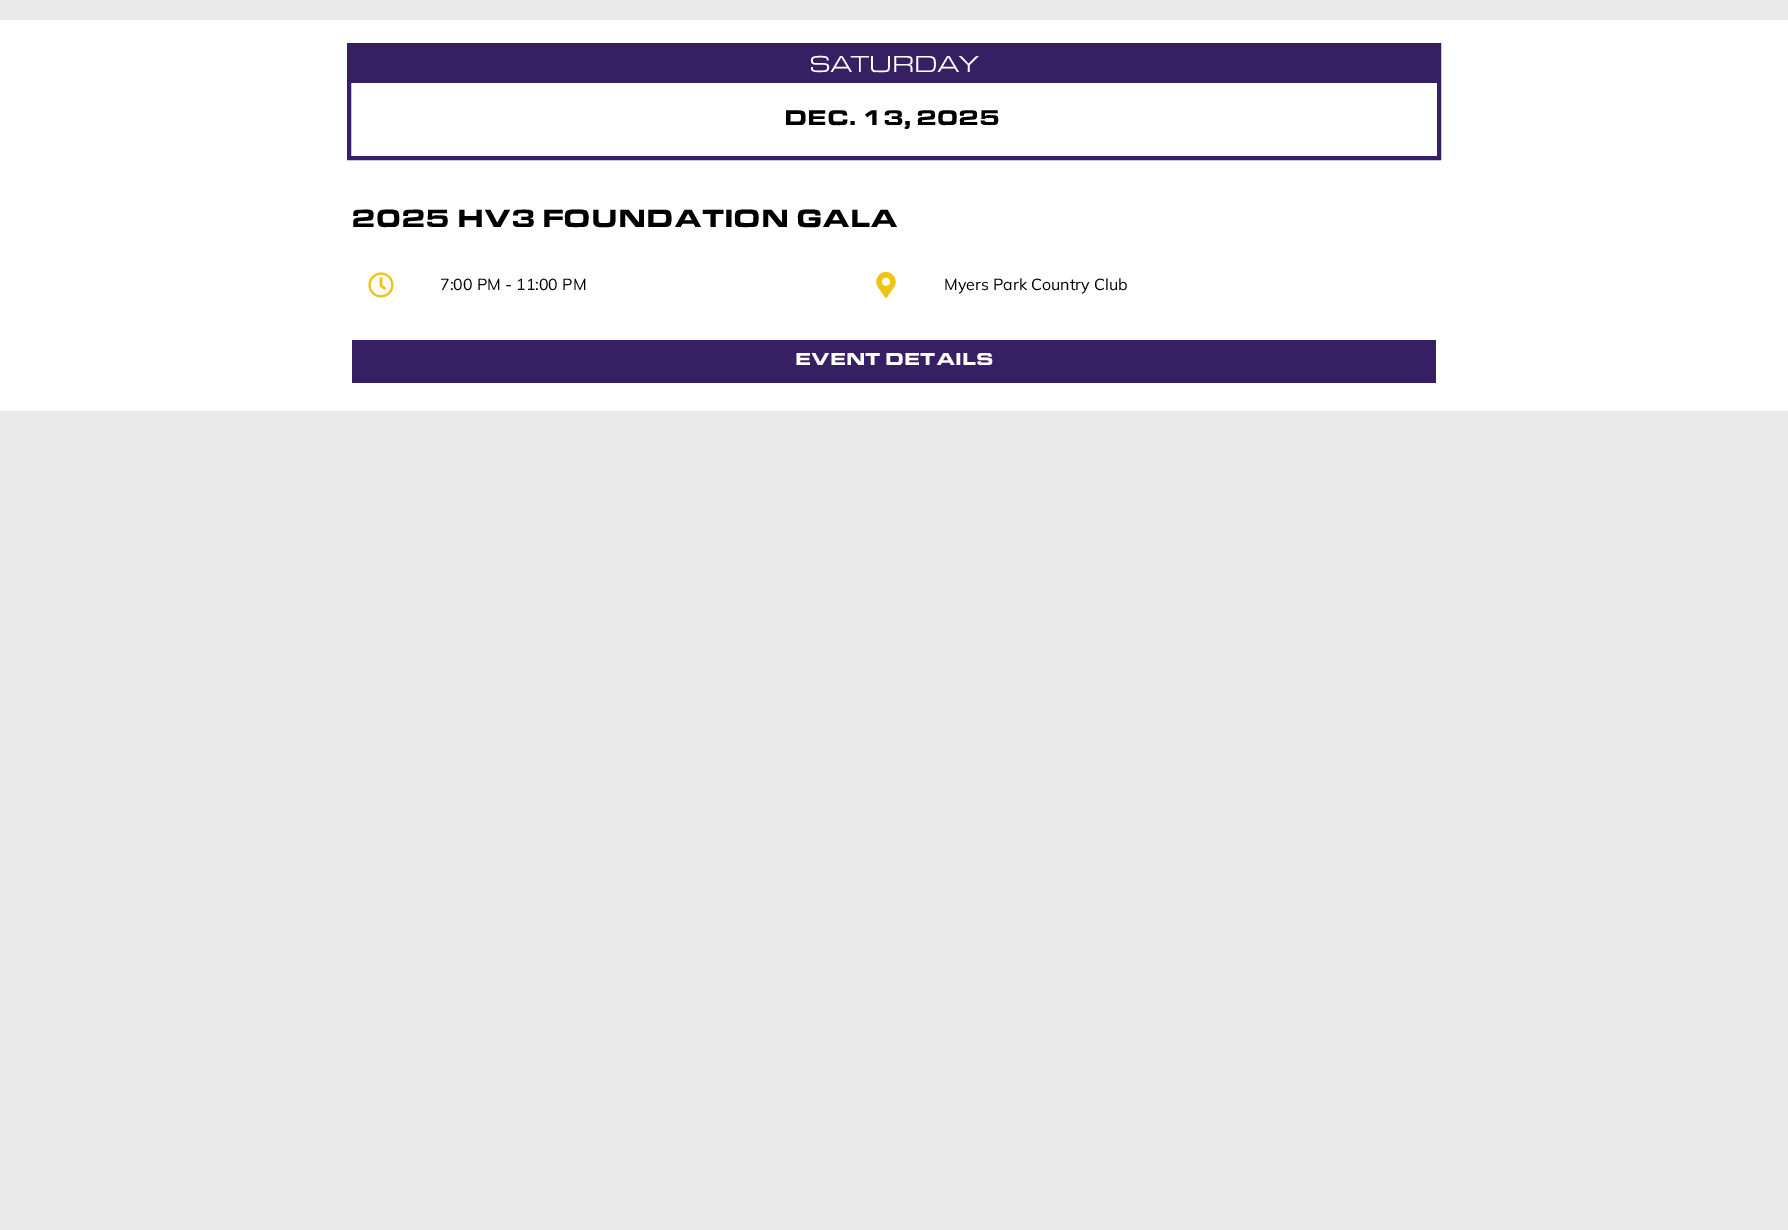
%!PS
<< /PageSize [1788 1230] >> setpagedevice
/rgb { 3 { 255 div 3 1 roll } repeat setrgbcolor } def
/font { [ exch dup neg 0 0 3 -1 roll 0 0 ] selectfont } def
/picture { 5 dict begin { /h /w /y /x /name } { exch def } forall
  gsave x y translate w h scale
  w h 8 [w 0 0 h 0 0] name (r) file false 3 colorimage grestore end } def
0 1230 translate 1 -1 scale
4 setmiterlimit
234 234 234 rgb
0 0 1788 1230 rectfill
255 255 255 rgb
0 20 1788 391 rectfill
55 31 100 rgb
4 setlinewidth
349 45 1090 113 rectstroke
351 47 1086 36 rectfill
(img/1.rgb) 368 272 26 26 picture
(img/2.rgb) 876 272 20 26 picture
352 340 1084 43 rectfill
/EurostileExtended-Regular 24 font
255 255 255 rgb
809 72 moveto (SATURDAY) show
/EurostileExtended-Black 22 font
0 0 0 rgb
784 125 moveto (DEC. 13, 2025) show
/EurostileExtended-Black 26 font
351 227 moveto (2025 HV3 FOUNDATION GALA) show
/Mulish-Regular 16 font
440 290 moveto (7:00 PM - 11:00 PM) show
944 290 moveto (Myers Park Country Club) show
/EurostileExtended-Black 18 font
255 255 255 rgb
795 365 moveto (EVENT DETAILS) show
showpage
